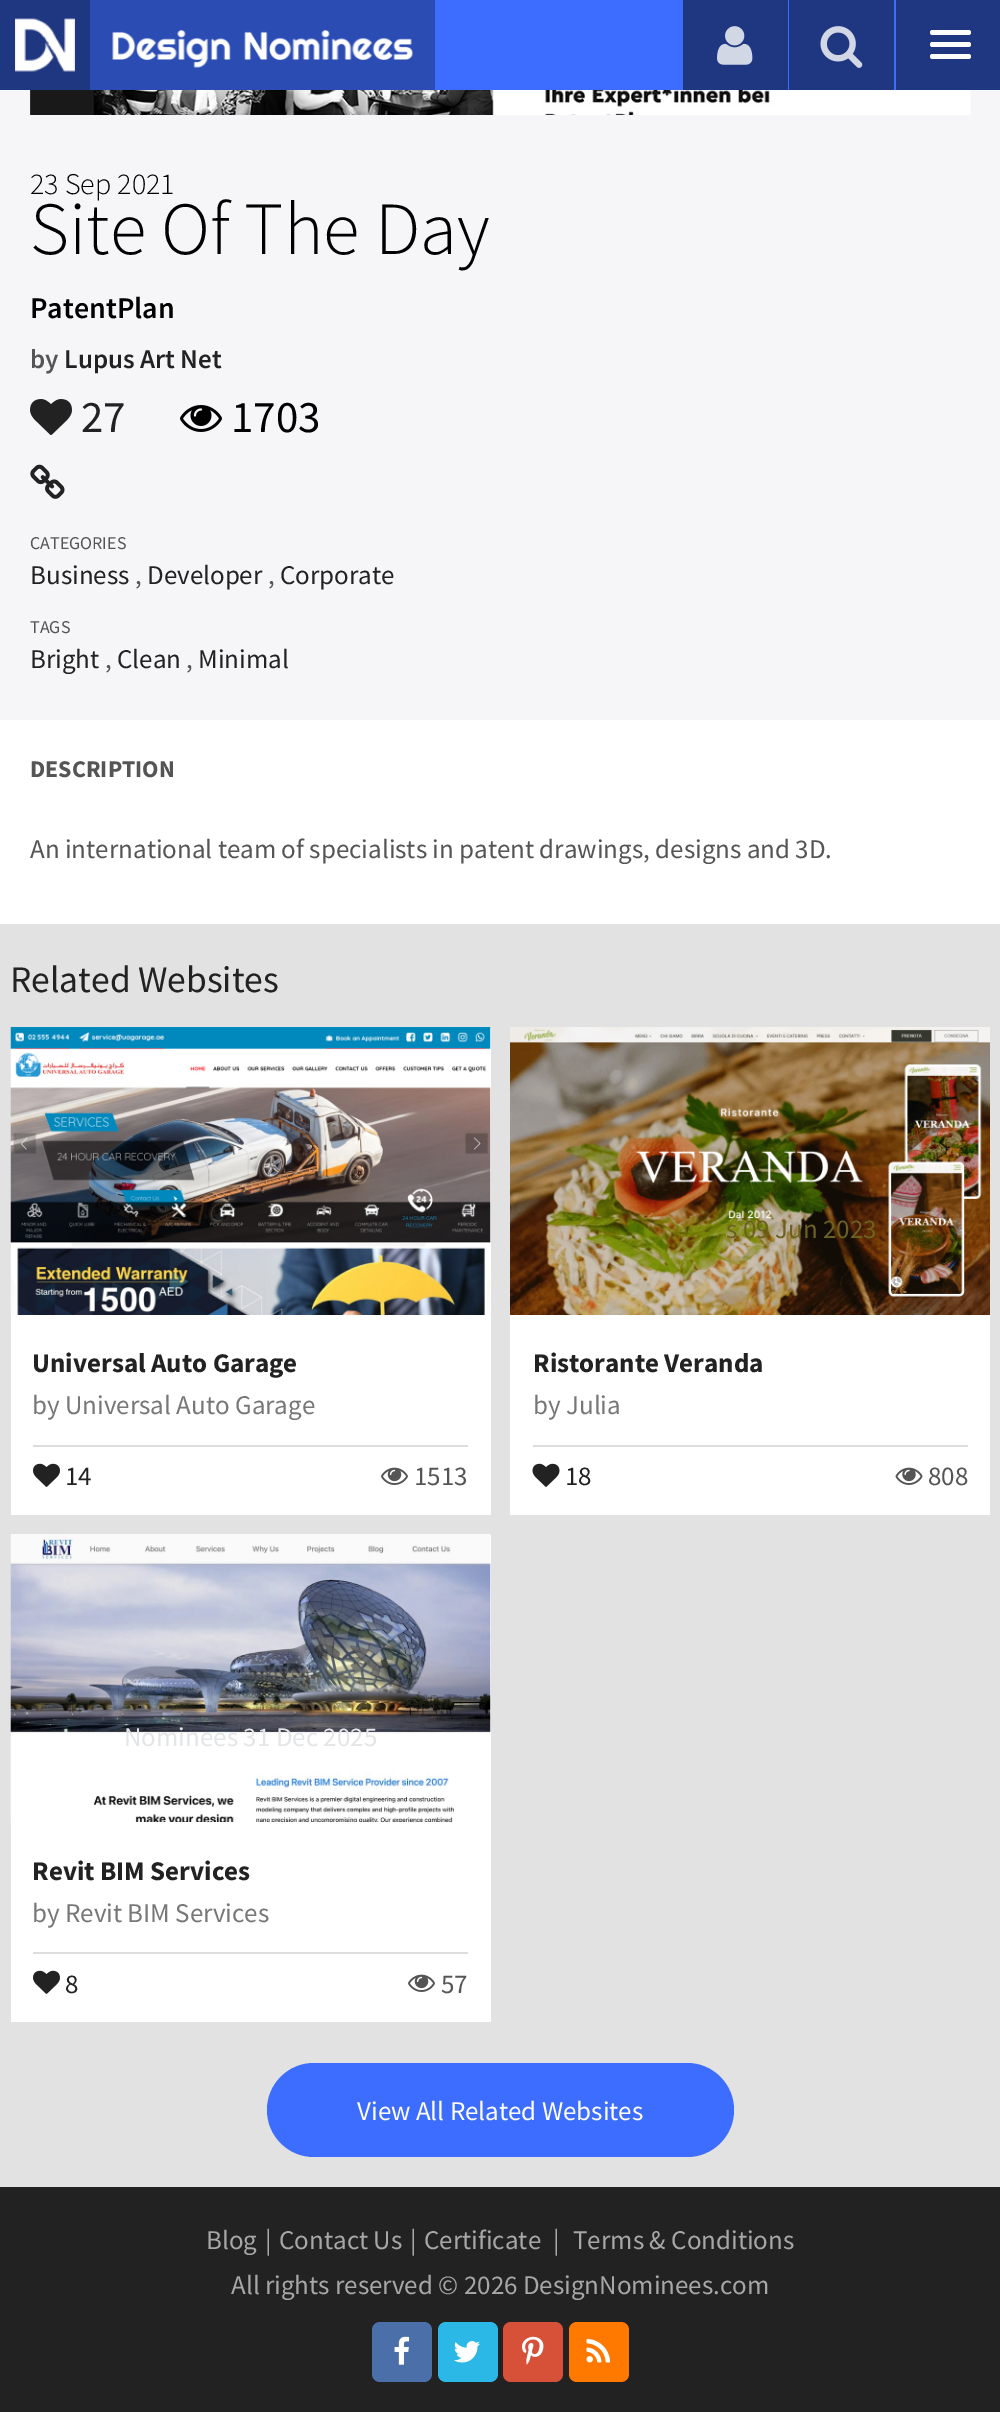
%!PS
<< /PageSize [1000 2412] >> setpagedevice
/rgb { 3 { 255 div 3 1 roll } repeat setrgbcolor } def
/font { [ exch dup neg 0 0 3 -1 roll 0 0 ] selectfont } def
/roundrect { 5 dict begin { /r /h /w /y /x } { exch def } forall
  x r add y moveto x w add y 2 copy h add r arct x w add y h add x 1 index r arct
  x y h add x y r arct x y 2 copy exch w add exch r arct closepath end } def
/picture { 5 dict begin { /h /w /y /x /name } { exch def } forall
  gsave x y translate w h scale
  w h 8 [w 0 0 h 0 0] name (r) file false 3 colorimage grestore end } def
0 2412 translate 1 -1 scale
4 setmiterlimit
226 226 226 rgb
0 0 1000 2412 rectfill
61 109 255 rgb
435 0 461 90 rectfill
31 55 128 rgb
0 0 90 90 rectfill
(img/1.rgb) 15 18 60 54 picture
43 76 179 rgb
90 0 345 90 rectfill
(img/2.rgb) 112 30 301 38 picture
31 55 128 rgb
683 0 105 90 rectfill
(img/3.rgb) 717 26 36 39 picture
789 0 105 90 rectfill
(img/4.rgb) 820 26 43 42 picture
896 0 104 90 rectfill
255 255 255 rgb
930 30 41 5 2.5 roundrect fill
930 42 41 5 2.5 roundrect fill
930 54 41 5 2.5 roundrect fill
246 246 249 rgb
0 90 1000 630 rectfill
(img/5.rgb) 30 90 941 25 picture
(img/6.rgb) 30 399 42 36 picture
(img/7.rgb) 180 405 42 27 picture
(img/8.rgb) 30 464 35 35 picture
255 255 255 rgb
0 720 1000 204 rectfill
11 1028 480 487 rectfill
(img/9.rgb) 10 1027 481 288 picture
221 221 221 rgb
33 1445 435 2 rectfill
(img/10.rgb) 33 1463 27 24 picture
(img/11.rgb) 381 1467 27 18 picture
255 255 255 rgb
510 1315 480 200 rectfill
(img/12.rgb) 510 1027 480 288 picture
221 221 221 rgb
533 1445 435 2 rectfill
(img/13.rgb) 532 1463 28 24 picture
(img/14.rgb) 895 1467 28 18 picture
255 255 255 rgb
11 1535 480 487 rectfill
(img/15.rgb) 10 1534 481 288 picture
221 221 221 rgb
33 1952 435 2 rectfill
(img/10.rgb) 33 1970 27 24 picture
(img/11.rgb) 408 1974 27 18 picture
61 109 255 rgb
267 2063 467 94 47 roundrect fill
34 34 34 rgb
0 2187 1000 225 rectfill
75 111 169 rgb
372 2322 60 60 8 roundrect fill
(img/16.rgb) 394 2336 16 29 picture
43 184 230 rgb
438 2322 60 60 8 roundrect fill
(img/17.rgb) 454 2341 26 22 picture
214 81 55 rgb
503 2322 60 60 8 roundrect fill
(img/18.rgb) 522 2336 22 29 picture
255 120 0 rgb
569 2322 60 60 8 roundrect fill
(img/19.rgb) 586 2338 25 25 picture
/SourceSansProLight-Light 30 font
0 0 0 rgb
30 194 moveto (23 Sep 2021) show
/SourceSansProLight-Light 75 font
30 254 moveto (Site Of The Day) show
/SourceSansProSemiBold-SemiBold 30 font
30 318 moveto (PatentPlan) show
/SourceSansProSemiBold-SemiBold 27 font
85 85 85 rgb
30 368 moveto (by) show
34 34 34 rgb
64 368 moveto (Lupus Art Net) show
/SourceSansPro-Regular 45 font
81 432 moveto (27) show
0 0 0 rgb
231 432 moveto (1703) show
/SourceSansPro-Regular 18 font
85 85 85 rgb
30 549 moveto (CATEGORIES) show
/SourceSansPro-Regular 27 font
34 34 34 rgb
30 584 moveto (Business) show
85 85 85 rgb
135 584 moveto (,) show
34 34 34 rgb
147 584 moveto (Developer) show
85 85 85 rgb
268 584 moveto (,) show
34 34 34 rgb
280 584 moveto (Corporate) show
/SourceSansPro-Regular 18 font
85 85 85 rgb
30 633 moveto (TAGS) show
/SourceSansPro-Regular 27 font
34 34 34 rgb
30 668 moveto (Bright) show
85 85 85 rgb
105 668 moveto (,) show
34 34 34 rgb
117 668 moveto (Clean) show
85 85 85 rgb
186 668 moveto (,) show
34 34 34 rgb
198 668 moveto (Minimal) show
/SourceSansPro-Bold 24 font
85 85 85 rgb
30 777 moveto (DESCRIPTION) show
/SourceSansPro-Regular 27 font
30 858 moveto (An international team of specialists in patent drawings, designs and 3D.) show
/SourceSansPro-Regular 37.5 font
34 34 34 rgb
10 992 moveto (Related Websites) show
/SourceSansPro-Bold 27 font
32 1372 moveto (Universal Auto Garage) show
/SourceSansPro-Regular 27 font
119 119 119 rgb
32 1414 moveto (by Universal Auto Garage) show
34 34 34 rgb
65 1485 moveto (14) show
85 85 85 rgb
414 1485 moveto (1513) show
108 98 31 rgb
726 1238 moveto (s 09 Jun 2023) show
/SourceSansPro-Bold 27 font
34 34 34 rgb
533 1372 moveto (Ristorante Veranda) show
/SourceSansPro-Regular 27 font
119 119 119 rgb
533 1414 moveto (by Julia) show
34 34 34 rgb
565 1485 moveto (18) show
85 85 85 rgb
928 1485 moveto (808) show
228 229 231 rgb
124 1746 moveto (Nominees 31 Dec 2025) show
/SourceSansPro-Bold 27 font
34 34 34 rgb
32 1880 moveto (Revit BIM Services) show
/SourceSansPro-Regular 27 font
119 119 119 rgb
32 1922 moveto (by Revit BIM Services) show
34 34 34 rgb
65 1993 moveto (8) show
85 85 85 rgb
441 1993 moveto (57) show
255 255 255 rgb
357 2120 moveto (View All Related Websites) show
167 167 167 rgb
[
  [(Blog) 206 2249]
  [(|) 265 2249]
  [(Contact Us) 279 2249]
  [(|) 410 2249]
  [(Certificate) 424 2249]
  [(|) 553 2249]
  [(Terms & Conditions) 573 2249]
  [(All rights reserved © 2026 DesignNominees.com) 231 2294]
] { aload pop moveto show } forall
showpage
